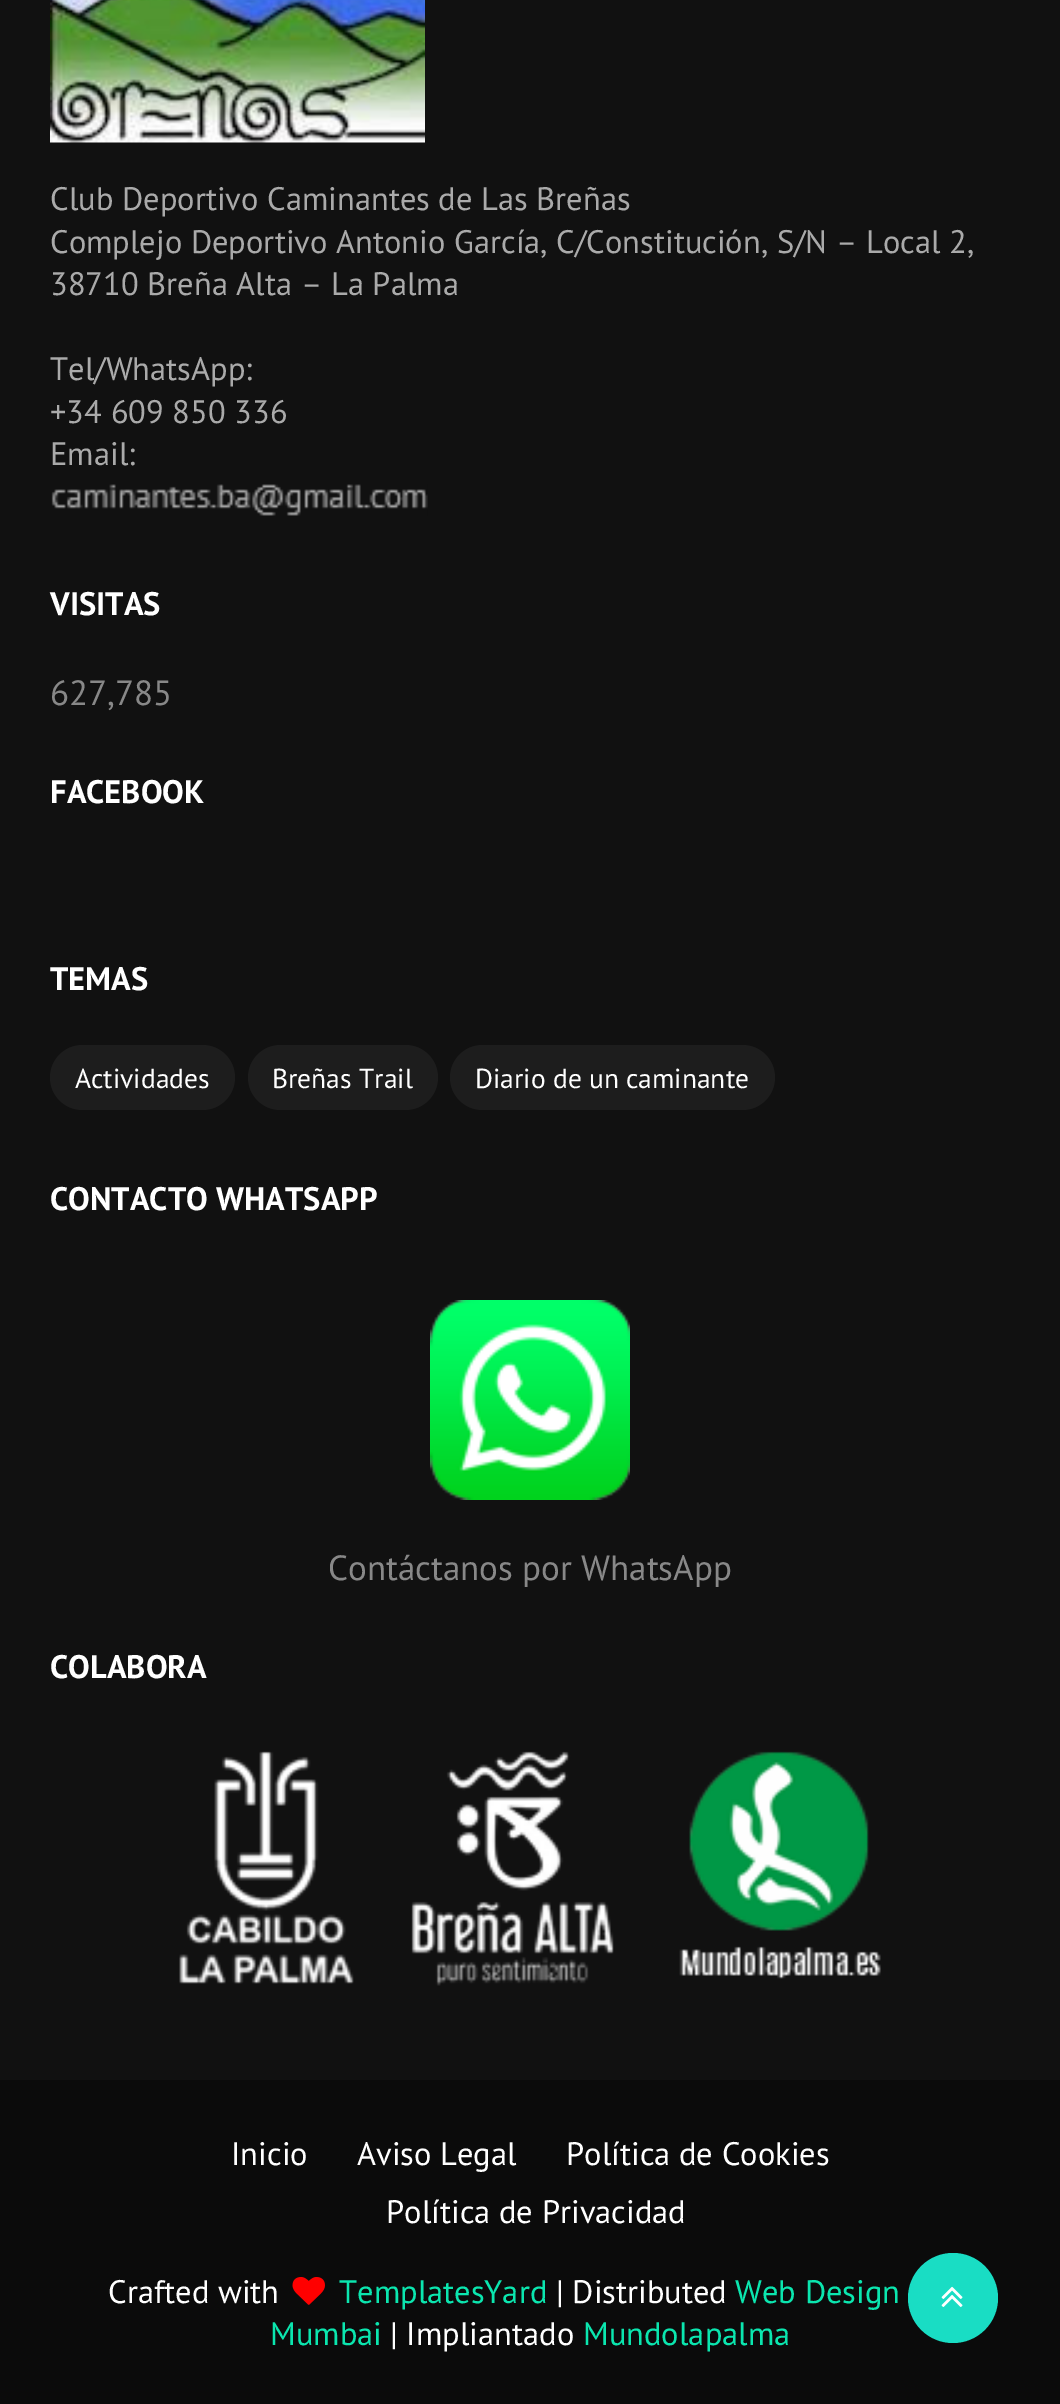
%!PS
<< /PageSize [1060 2404] >> setpagedevice
/rgb { 3 { 255 div 3 1 roll } repeat setrgbcolor } def
/font { [ exch dup neg 0 0 3 -1 roll 0 0 ] selectfont } def
/circle { newpath 0 360 arc closepath } def
/roundrect { 5 dict begin { /r /h /w /y /x } { exch def } forall
  x r add y moveto x w add y 2 copy h add r arct x w add y h add x 1 index r arct
  x y h add x y r arct x y 2 copy exch w add exch r arct closepath end } def
/picture { 5 dict begin { /h /w /y /x /name } { exch def } forall
  gsave x y translate w h scale
  w h 8 [w 0 0 h 0 0] name (r) file false 3 colorimage grestore end } def
0 2404 translate 1 -1 scale
4 setmiterlimit
17 17 17 rgb
0 0 1060 2404 rectfill
(img/1.rgb) 50 0 375 143 picture
(img/2.rgb) 51 484 377 32 picture
29 29 29 rgb
50 1045 185 65 32.5 roundrect fill
248 1045 190 65 32.5 roundrect fill
450 1045 325 65 32.5 roundrect fill
(img/3.rgb) 430 1300 200 200 picture
(img/4.rgb) 179 1751 702 235 picture
11 11 11 rgb
0 2080 1060 324 rectfill
(img/5.rgb) 292 2277 33 28 picture
25 221 196 rgb
953 2298 45 circle fill
(img/6.rgb) 941 2286 22 21 picture
/PTSans-Regular 32.5 font
170 170 170 rgb
[
  [(Club Deportivo Caminantes de Las Breñas) 50 210]
  [(Complejo Deportivo Antonio García, C/Constitución, S/N – Local 2,) 50 253]
  [(38710 Breña Alta – La Palma) 50 295]
  [(Tel/WhatsApp:) 50 380]
  [(+34 609 850 336) 50 423]
  [(Email:) 50 465]
] { aload pop moveto show } forall
/PTSans-Bold 32.5 font
255 255 255 rgb
50 615 moveto (VISITAS) show
/PTSans-Regular 35 font
136 136 136 rgb
50 705 moveto (627,785) show
/PTSans-Bold 32.5 font
255 255 255 rgb
50 803 moveto (FACEBOOK) show
50 990 moveto (TEMAS) show
/PTSans-Regular 27.5 font
[
  [(Actividades) 75 1088]
  [(Breñas Trail) 272 1088]
  [(Diario de un caminante) 475 1088]
] { aload pop moveto show } forall
/PTSans-Bold 32.5 font
50 1210 moveto (CONTACTO WHATSAPP) show
/PTSans-Regular 35 font
136 136 136 rgb
328 1580 moveto (Contáctanos por WhatsApp) show
/PTSans-Bold 32.5 font
255 255 255 rgb
50 1678 moveto (COLABORA) show
/PTSans-Regular 32.5 font
[
  [(Inicio) 231 2165]
  [(Aviso Legal) 357 2165]
  [(Política de Cookies) 566 2165]
  [(Política de Privacidad) 386 2223]
  [(Crafted with) 108 2303]
] { aload pop moveto show } forall
11 230 175 rgb
339 2303 moveto (TemplatesYard) show
255 255 255 rgb
556 2303 moveto (| Distributed) show
11 230 175 rgb
735 2303 moveto (Web Design) show
270 2345 moveto (Mumbai) show
255 255 255 rgb
390 2345 moveto (| Impliantado) show
11 230 175 rgb
583 2345 moveto (Mundolapalma) show
showpage
